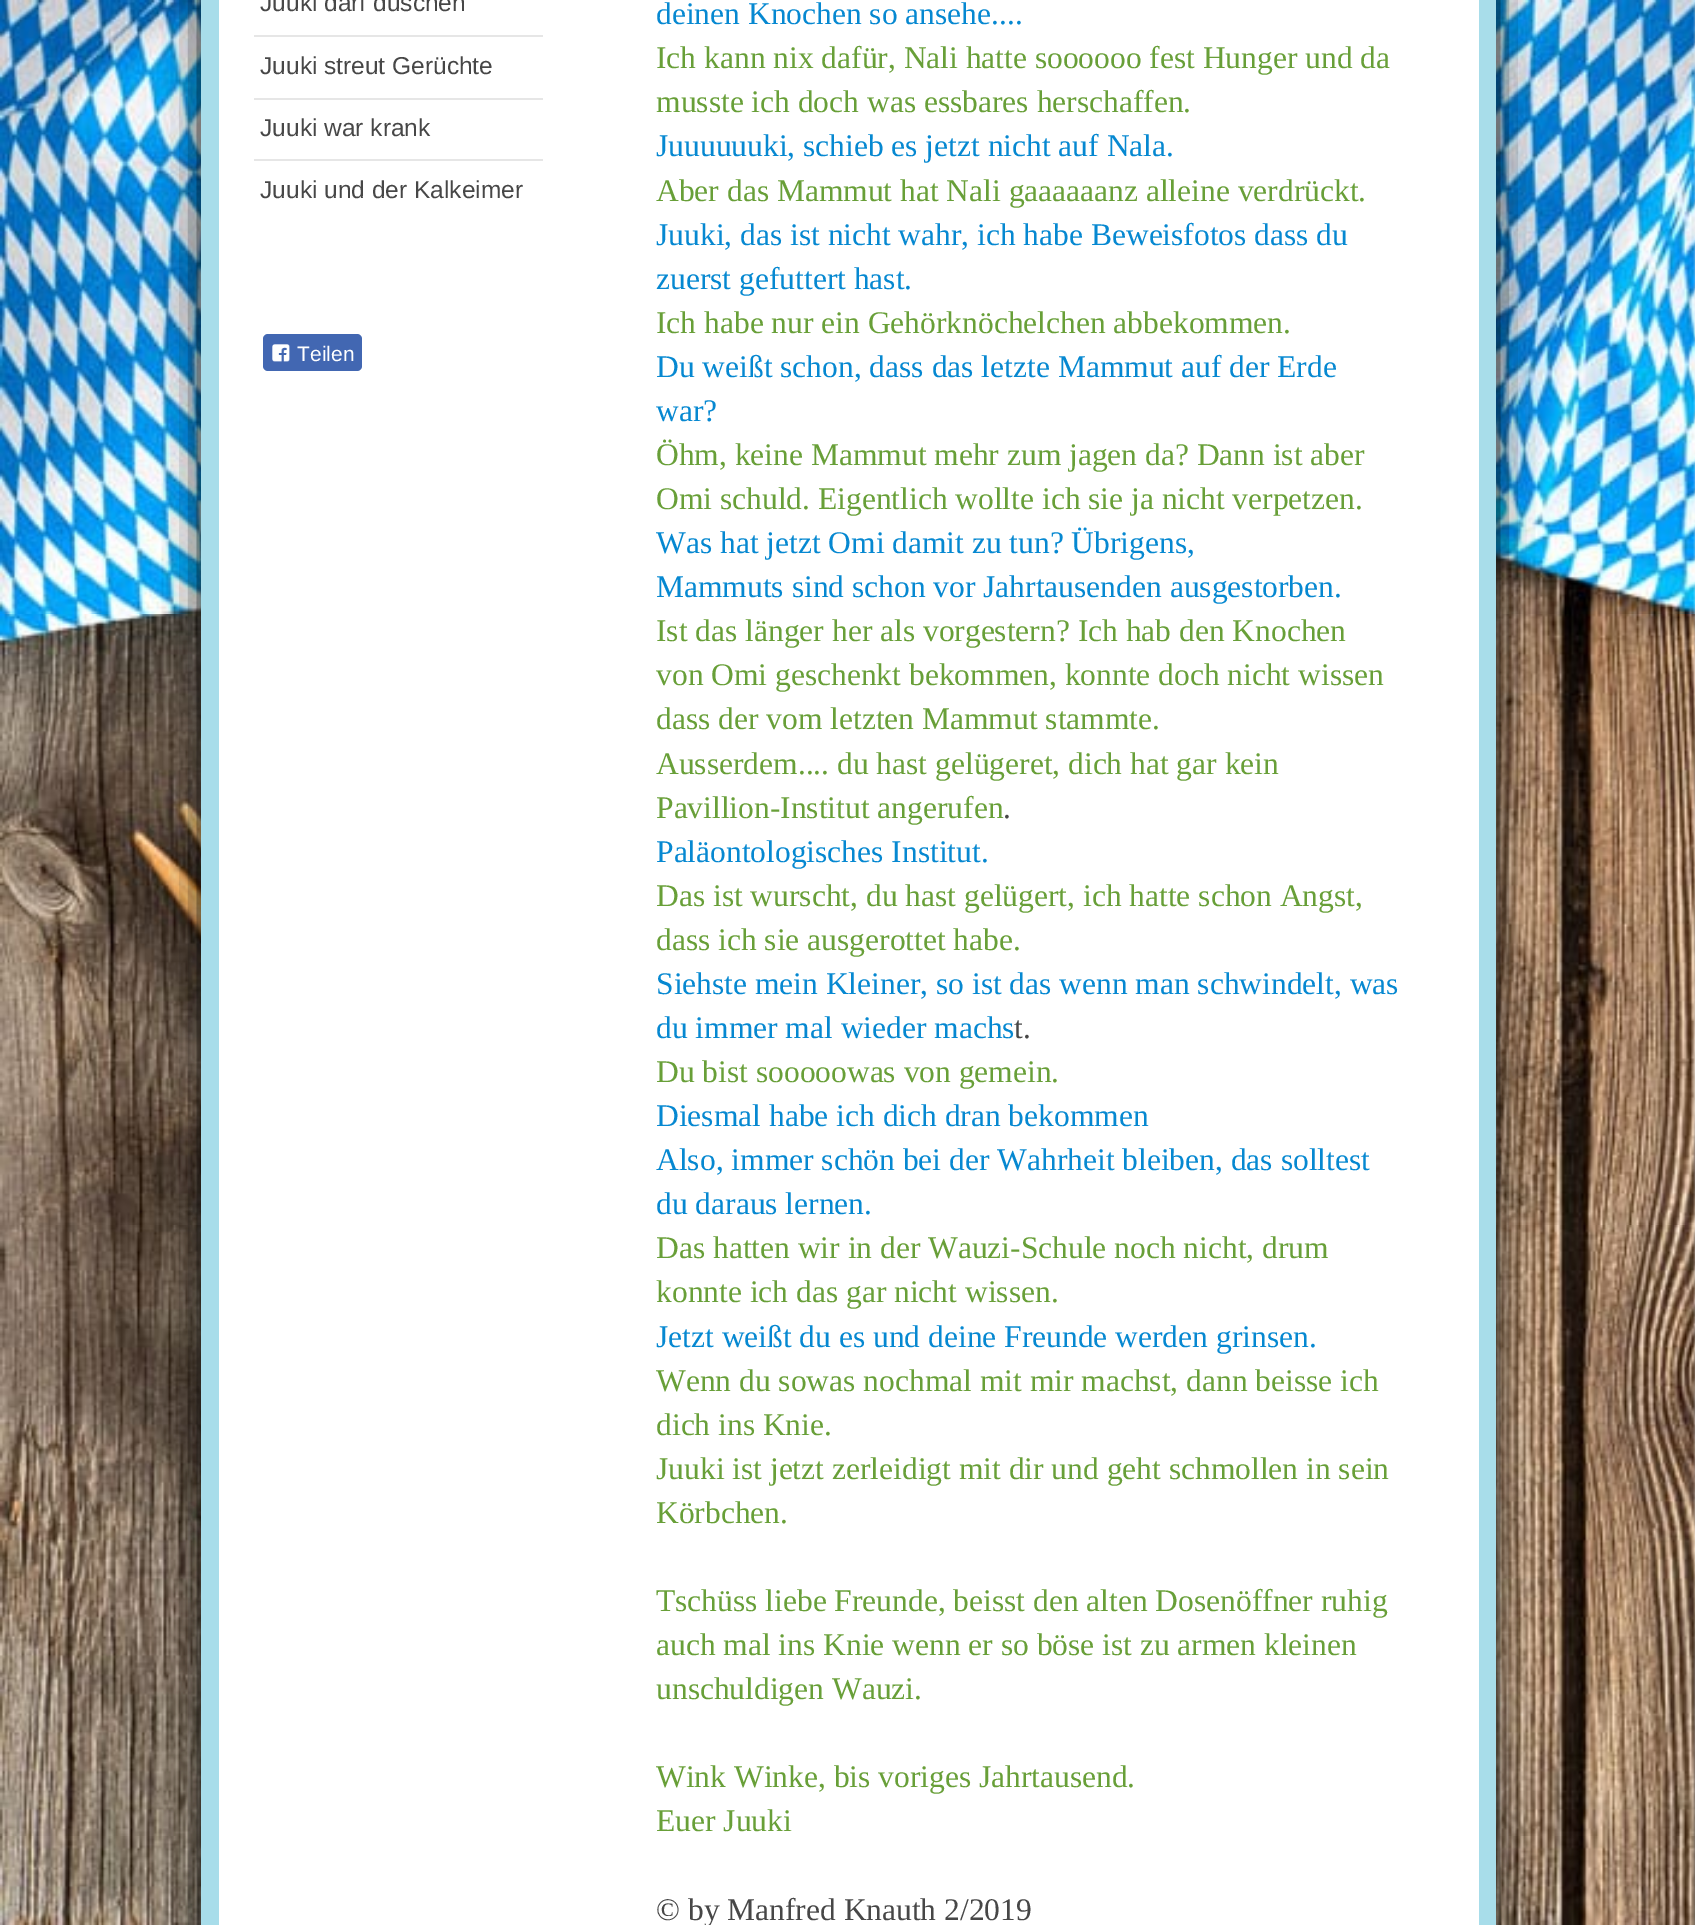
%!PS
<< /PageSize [1695 1925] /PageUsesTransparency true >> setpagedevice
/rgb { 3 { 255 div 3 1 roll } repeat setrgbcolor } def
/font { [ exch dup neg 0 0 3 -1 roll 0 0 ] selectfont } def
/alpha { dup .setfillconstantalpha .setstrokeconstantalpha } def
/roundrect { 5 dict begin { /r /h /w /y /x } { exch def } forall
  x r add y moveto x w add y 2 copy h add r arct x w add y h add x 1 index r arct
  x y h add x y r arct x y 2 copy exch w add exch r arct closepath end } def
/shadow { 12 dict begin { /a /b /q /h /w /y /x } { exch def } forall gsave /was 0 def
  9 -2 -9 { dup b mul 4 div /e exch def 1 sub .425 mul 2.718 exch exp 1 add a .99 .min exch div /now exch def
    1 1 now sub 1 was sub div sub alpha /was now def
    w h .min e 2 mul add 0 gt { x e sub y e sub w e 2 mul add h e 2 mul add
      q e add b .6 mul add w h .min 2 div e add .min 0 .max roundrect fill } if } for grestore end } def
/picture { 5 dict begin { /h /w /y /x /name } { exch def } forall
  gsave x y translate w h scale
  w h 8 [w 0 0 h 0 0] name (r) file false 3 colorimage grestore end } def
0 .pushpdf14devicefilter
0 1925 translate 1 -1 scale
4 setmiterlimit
255 255 255 rgb
0 0 1695 1925 rectfill
(img/1.rgb) 0 0 1695 1925 picture
0 0 0 rgb
201 -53 1295 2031 0 17.5 1 shadow
[
  [201 0 1295 1925 168 221 234]
  [219 0 1260 1925 255 255 255]
  [254 35 289 2 230 230 230]
  [254 98 289 2 230 230 230]
  [254 159 289 2 230 230 230]
] { aload pop rgb rectfill } forall
66 103 178 rgb
263 334 99 37 5 roundrect fill
(img/2.rgb) 272 344 18 18 picture
/LiberationSans-Regular 24.5 font
71 71 71 rgb
[
  [(Juuki darf duschen) 260 11]
  [(Juuki streut Gerüchte) 260 74]
  [(Juuki war krank) 260 136]
  [(Juuki und der Kalkeimer) 260 198]
] { aload pop moveto show } forall
/LiberationSans-Regular 21 font
255 255 255 rgb
297 361 moveto (Teilen) show
/LiberationSerif-Regular 31.5 font
6 136 209 rgb
656 24 moveto (deinen Knochen so ansehe....) show
104 159 56 rgb
656 68 moveto (Ich kann nix dafür, Nali hatte soooooo fest Hunger und da) show
656 112 moveto (musste ich doch was essbares herschaffen.) show
6 136 209 rgb
656 156 moveto (Juuuuuuki, schieb es jetzt nicht auf Nala.) show
104 159 56 rgb
656 201 moveto (Aber das Mammut hat Nali gaaaaaanz alleine verdrückt.) show
6 136 209 rgb
656 245 moveto (Juuki, das ist nicht wahr, ich habe Beweisfotos dass du) show
656 289 moveto (zuerst gefuttert hast.) show
104 159 56 rgb
656 333 moveto (Ich habe nur ein Gehörknöchelchen abbekommen.) show
6 136 209 rgb
656 377 moveto (Du weißt schon, dass das letzte Mammut auf der Erde) show
656 421 moveto (war?) show
104 159 56 rgb
656 465 moveto (Öhm, keine Mammut mehr zum jagen da? Dann ist aber) show
656 509 moveto (Omi schuld. Eigentlich wollte ich sie ja nicht verpetzen.) show
6 136 209 rgb
656 553 moveto (Was hat jetzt Omi damit zu tun? Übrigens,) show
656 597 moveto (Mammuts sind schon vor Jahrtausenden ausgestorben.) show
104 159 56 rgb
[
  [(Ist das länger her als vorgestern? Ich hab den Knochen) 656 641]
  [(von Omi geschenkt bekommen, konnte doch nicht wissen) 656 685]
  [(dass der vom letzten Mammut stammte.) 656 729]
  [(Ausserdem.... du hast gelügeret, dich hat gar kein) 656 774]
  [(Pavillion-Institut angerufen) 656 818]
] { aload pop moveto show } forall
71 71 71 rgb
1003 818 moveto (.) show
6 136 209 rgb
656 862 moveto (Paläontologisches Institut.) show
104 159 56 rgb
656 906 moveto (Das ist wurscht, du hast gelügert, ich hatte schon Angst,) show
656 950 moveto (dass ich sie ausgerottet habe.) show
6 136 209 rgb
656 994 moveto (Siehste mein Kleiner, so ist das wenn man schwindelt, was) show
656 1038 moveto (du immer mal wieder machs) show
71 71 71 rgb
1014 1038 moveto (t.) show
104 159 56 rgb
656 1082 moveto (Du bist sooooowas von gemein.) show
6 136 209 rgb
[
  [(Diesmal habe ich dich dran bekommen) 656 1126]
  [(Also, immer schön bei der Wahrheit bleiben, das solltest) 656 1170]
  [(du daraus lernen.) 656 1214]
] { aload pop moveto show } forall
104 159 56 rgb
656 1258 moveto (Das hatten wir in der Wauzi-Schule noch nicht, drum) show
656 1302 moveto (konnte ich das gar nicht wissen.) show
6 136 209 rgb
656 1347 moveto (Jetzt weißt du es und deine Freunde werden grinsen.) show
104 159 56 rgb
[
  [(Wenn du sowas nochmal mit mir machst, dann beisse ich) 656 1391]
  [(dich ins Knie.) 656 1435]
  [(Juuki ist jetzt zerleidigt mit dir und geht schmollen in sein) 656 1479]
  [(Körbchen.) 656 1523]
  [(Tschüss liebe Freunde, beisst den alten Dosenöffner ruhig) 656 1611]
  [(auch mal ins Knie wenn er so böse ist zu armen kleinen) 656 1655]
  [(unschuldigen Wauzi.) 656 1699]
  [(Wink Winke, bis voriges Jahrtausend.) 656 1787]
  [(Euer Juuki) 656 1831]
] { aload pop moveto show } forall
71 71 71 rgb
656 1920 moveto (© by Manfred Knauth 2/2019) show
.poppdf14devicefilter showpage
